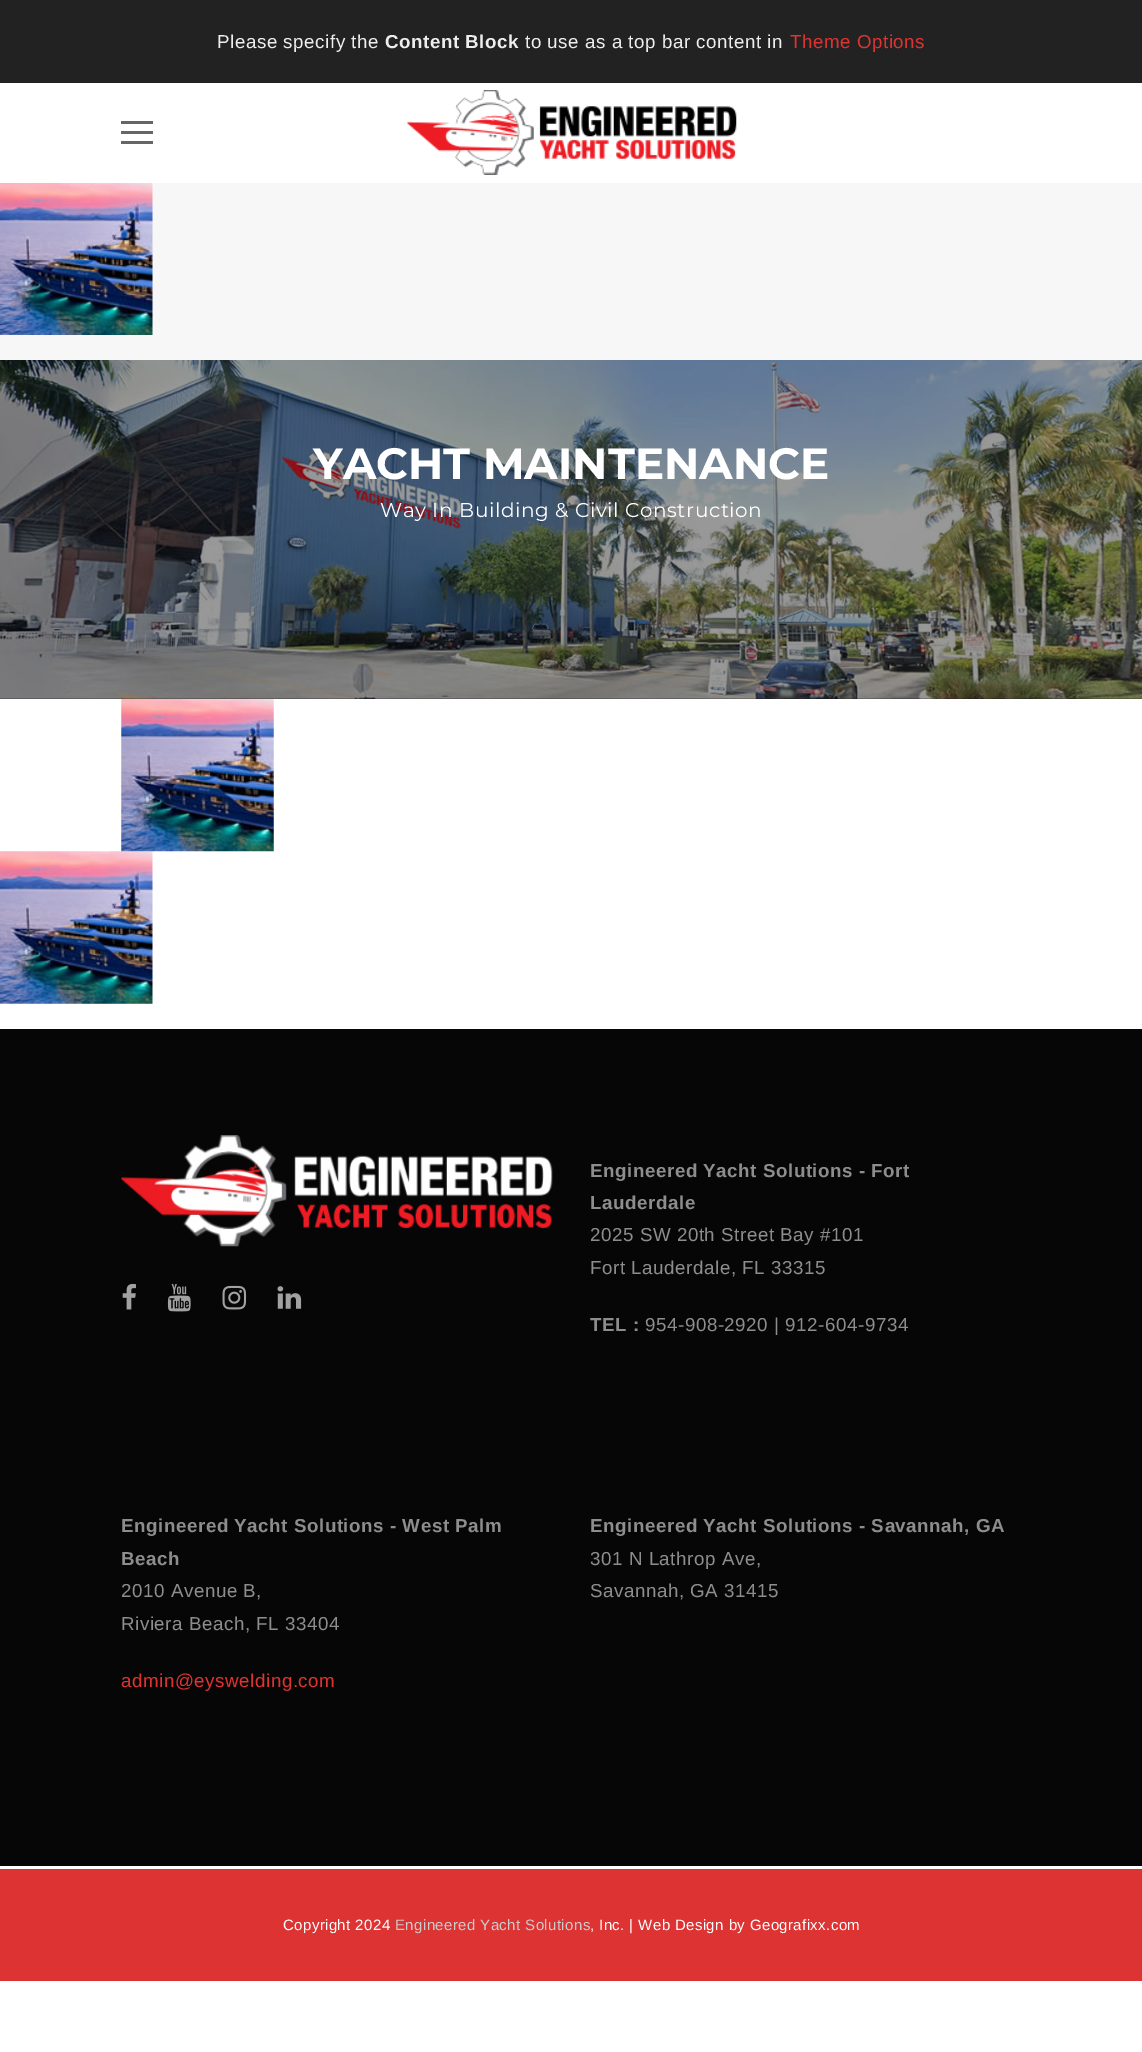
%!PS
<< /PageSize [1142 2052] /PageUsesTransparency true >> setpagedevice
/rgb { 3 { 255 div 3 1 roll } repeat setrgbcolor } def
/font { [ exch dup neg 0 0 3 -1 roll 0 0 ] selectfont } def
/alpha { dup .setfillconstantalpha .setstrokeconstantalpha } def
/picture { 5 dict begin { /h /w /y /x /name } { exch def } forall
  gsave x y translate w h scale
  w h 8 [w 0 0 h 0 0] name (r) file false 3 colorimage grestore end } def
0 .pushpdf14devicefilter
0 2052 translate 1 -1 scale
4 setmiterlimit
255 255 255 rgb
0 0 1142 2052 rectfill
[
  [0 0 1142 83 34 34 34]
  [121 131 32 3 102 102 102]
  [121 121 32 3 102 102 102]
  [121 141 32 3 102 102 102]
] { aload pop rgb rectfill } forall
(img/1.rgb) 407 90 330 85 picture
247 247 247 rgb
0 183 1142 516 rectfill
(img/2.rgb) 0 183 153 152 picture
(img/5.rgb) 0 851 153 153 picture
(img/4.rgb) 121 698 153 154 picture
(img/3.rgb) 0 360 1142 339 picture
0.4 alpha
0 0 0 rgb
0 360 1142 339 rectfill
1 alpha
6 6 6 rgb
0 1029 1142 837 rectfill
(img/6.rgb) 121 1135 432 112 picture
(img/7.rgb) 122 1283 14 27 picture
(img/8.rgb) 167 1283 24 29 picture
(img/9.rgb) 222 1285 25 25 picture
(img/10.rgb) 277 1286 25 23 picture
221 51 51 rgb
0 1869 1142 112 rectfill
/Arimo-Regular 18.75 font
238 238 238 rgb
217 48 moveto 0.55 0 (Please specify the) ashow
/Arimo-Bold 18.75 font
385 48 moveto 0.55 0 (Content Block) ashow
/Arimo-Regular 18.75 font
525 48 moveto 0.55 0 (to use as a top bar content in) ashow
221 51 51 rgb
790 48 moveto 0.55 0 (Theme Options) ashow
/Montserrat-Bold 43.75 font
255 255 255 rgb
313 479 moveto (YACHT MAINTENANCE) show
/Montserrat-Regular 20 font
380 517 moveto 0.6 0 (Way In Building & Civil Construction) ashow
/Arimo-Bold 18.75 font
141 141 141 rgb
590 1177 moveto 0.55 0 (Engineered Yacht Solutions - Fort) ashow
590 1209 moveto 0.55 0 (Lauderdale) ashow
/Arimo-Regular 18.75 font
590 1241 moveto 0.55 0 (2025 SW 20th Street Bay #101) ashow
590 1274 moveto 0.55 0 (Fort Lauderdale, FL 33315) ashow
/Arimo-Bold 18.75 font
590 1331 moveto 0.55 0 (TEL :) ashow
/Arimo-Regular 18.75 font
645 1331 moveto 0.55 0 (954-908-2920 | 912-604-9734) ashow
/Arimo-Bold 18.75 font
121 1532 moveto 0.55 0 (Engineered Yacht Solutions - West Palm) ashow
121 1565 moveto 0.55 0 (Beach) ashow
/Arimo-Regular 18.75 font
121 1597 moveto 0.55 0 (2010 Avenue B,) ashow
121 1630 moveto 0.55 0 (Riviera Beach, FL 33404) ashow
221 51 51 rgb
121 1687 moveto 0.55 0 (admin@eyswelding.com) ashow
/Arimo-Bold 18.75 font
141 141 141 rgb
590 1532 moveto 0.55 0 (Engineered Yacht Solutions - Savannah, GA) ashow
/Arimo-Regular 18.75 font
590 1565 moveto 0.55 0 (301 N Lathrop Ave,) ashow
590 1597 moveto 0.55 0 (Savannah, GA 31415) ashow
/Arimo-Regular 15 font
255 255 255 rgb
283 1930 moveto 0.4 0 (Copyright 2024) ashow
204 204 204 rgb
395 1930 moveto 0.4 0 (Engineered Yacht Solutions) ashow
255 255 255 rgb
590 1930 moveto 0.4 0 (, Inc. | Web Design by Geografixx.com) ashow
.poppdf14devicefilter showpage
